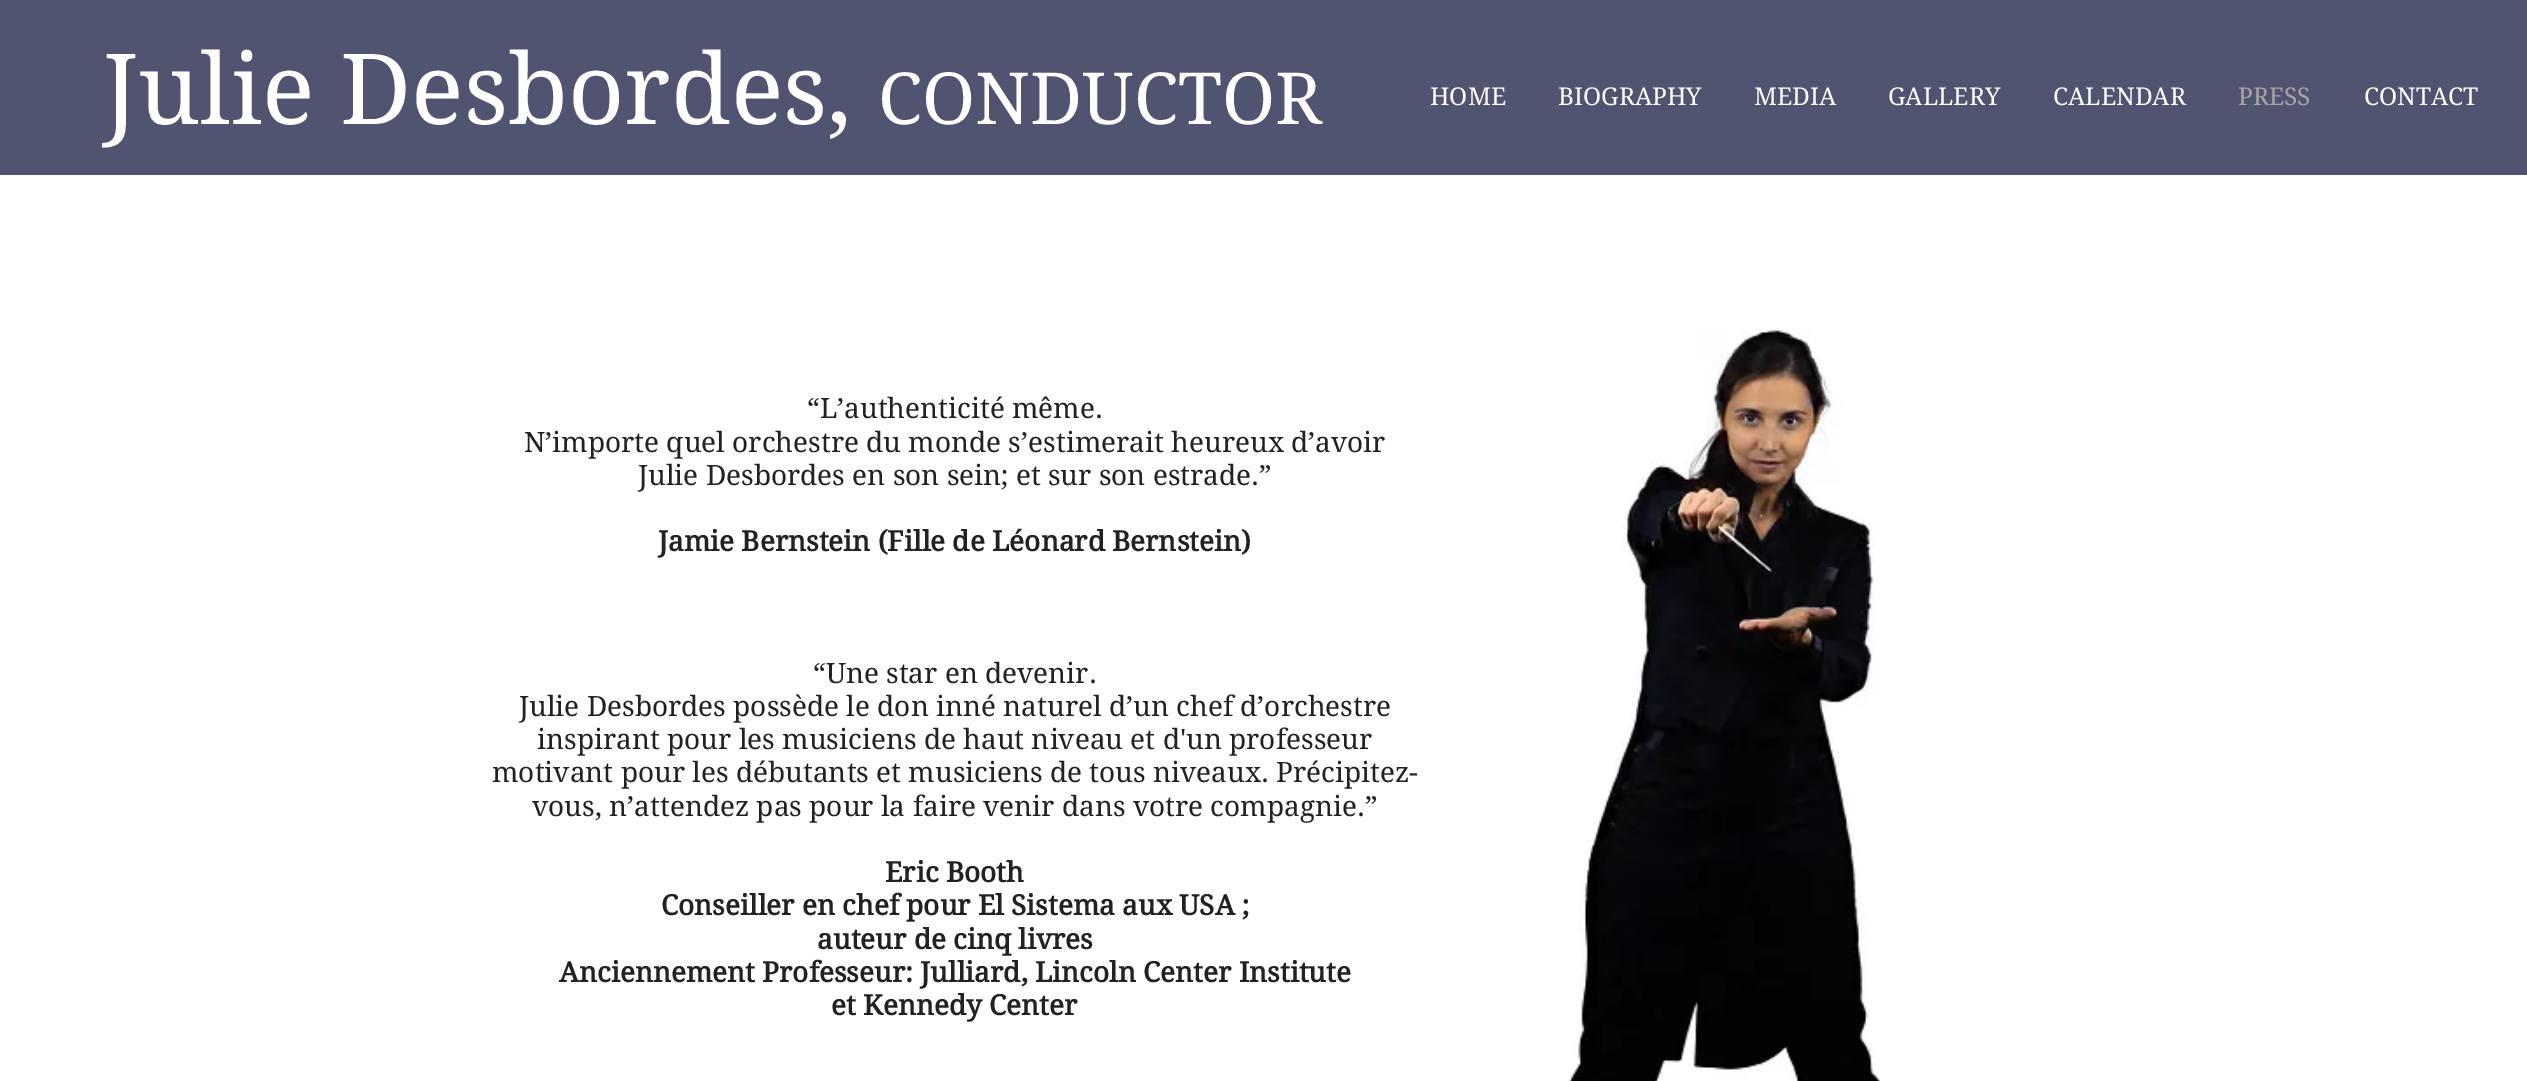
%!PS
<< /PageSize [2527 1081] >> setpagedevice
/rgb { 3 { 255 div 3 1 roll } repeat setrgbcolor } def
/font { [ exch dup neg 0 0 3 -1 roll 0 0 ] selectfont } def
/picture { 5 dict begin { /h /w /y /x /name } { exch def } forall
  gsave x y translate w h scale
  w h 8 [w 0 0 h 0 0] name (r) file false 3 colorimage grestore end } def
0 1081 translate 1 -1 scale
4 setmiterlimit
255 255 255 rgb
0 0 2527 1081 rectfill
81 84 113 rgb
0 0 2527 175 rectfill
(img/1.rgb) 1567 329 314 752 picture
/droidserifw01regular-Regular 98 font
255 255 255 rgb
103 124 moveto (Julie Desbordes,) show
/droidserifw01regular-Regular 71.75 font
878 124 moveto (CONDUCTOR) show
/droidserifw01regular-Regular 24.5 font
[
  [(HOME) 1430 105]
  [(BIOGRAPHY) 1558 105]
  [(MEDIA) 1754 105]
  [(GALLERY) 1888 105]
  [(CALENDAR) 2053 105]
] { aload pop moveto show } forall
167 165 165 rgb
2238 105 moveto (PRESS) show
255 255 255 rgb
2364 105 moveto (CONTACT) show
/droidserifw01regular-Regular 28 font
34 34 34 rgb
[
  [(“L’authenticité même.) 807 418]
  [(N’importe quel orchestre du monde s’estimerait heureux d’avoir) 524 452]
  [(Julie Desbordes en son sein; et sur son estrade.”) 638 485]
] { aload pop moveto show } forall
/droidserifw01regular-Bold 28 font
658 551 moveto (Jamie Bernstein \(Fille de Léonard Bernstein\)) show
/droidserifw01regular-Regular 28 font
[
  [(“Une star en devenir.) 813 683]
  [(Julie Desbordes possède le don inné naturel d’un chef d’orchestre) 519 716]
  [(inspirant pour les musiciens de haut niveau et d'un professeur) 537 749]
  [(motivant pour les débutants et musiciens de tous niveaux. Précipitez-) 492 782]
  [(vous, n’attendez pas pour la faire venir dans votre compagnie.”) 532 816]
] { aload pop moveto show } forall
/droidserifw01regular-Bold 28 font
[
  [(Eric Booth) 885 882]
  [(Conseiller en chef pour El Sistema aux USA ;) 661 915]
  [(auteur de cinq livres) 817 949]
  [(Anciennement Professeur: Julliard, Lincoln Center Institute) 559 982]
  [(et Kennedy Center) 831 1015]
] { aload pop moveto show } forall
showpage
